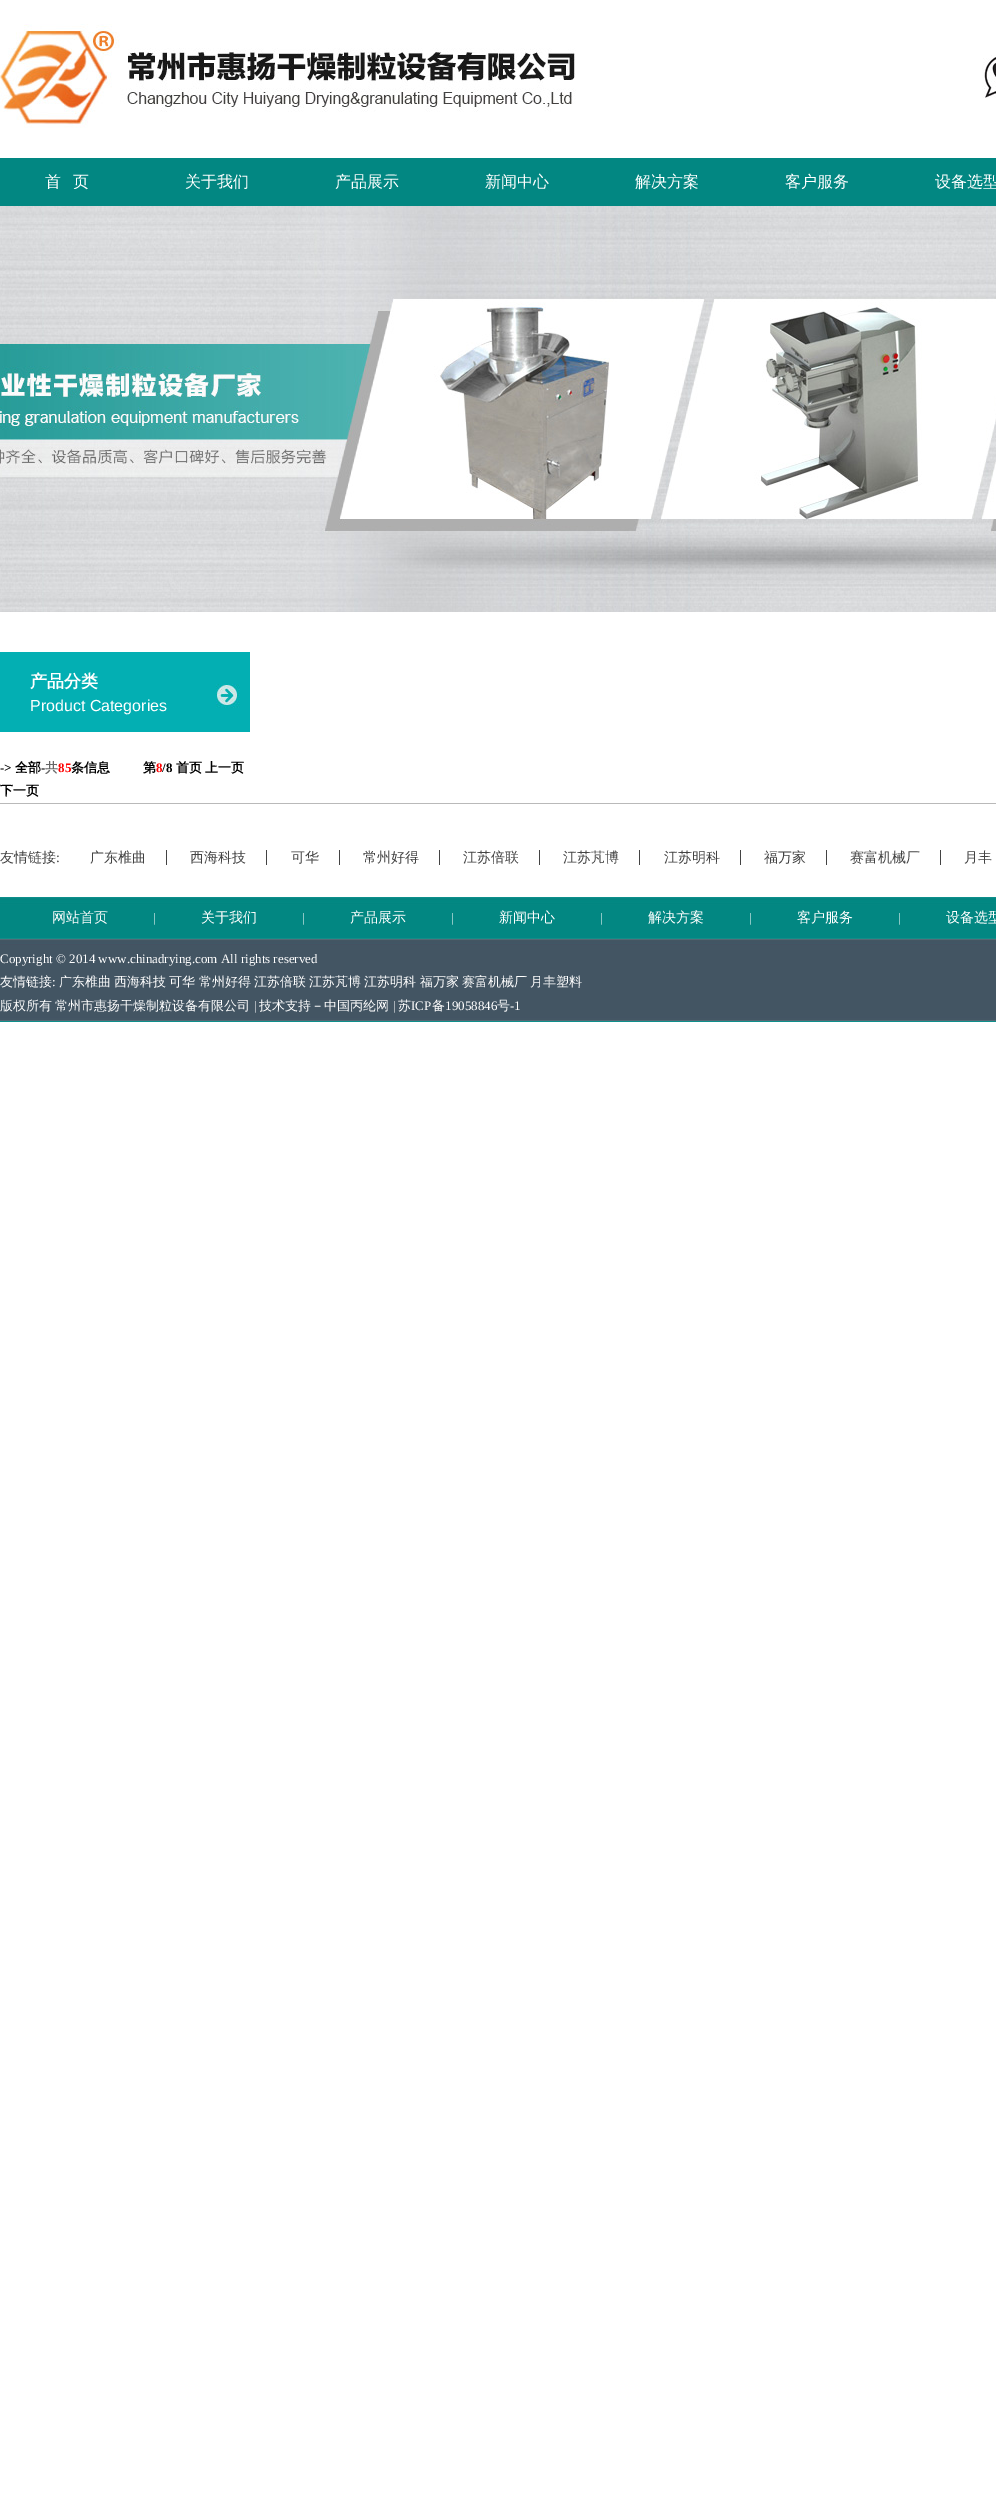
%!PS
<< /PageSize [996 2510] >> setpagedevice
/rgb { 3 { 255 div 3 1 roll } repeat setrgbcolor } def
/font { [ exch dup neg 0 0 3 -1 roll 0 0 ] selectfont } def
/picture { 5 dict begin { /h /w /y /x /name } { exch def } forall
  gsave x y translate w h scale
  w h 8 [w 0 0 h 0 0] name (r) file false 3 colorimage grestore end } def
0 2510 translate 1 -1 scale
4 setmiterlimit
255 255 255 rgb
0 0 996 2510 rectfill
(img/1.rgb) 0 24 576 104 picture
(img/2.rgb) 982 55 14 43 picture
2 135 130 rgb
0 158 996 48 rectfill
(img/3.rgb) 0 206 996 406 picture
(img/4.rgb) 0 652 250 80 picture
[
  [0 803 996 1 185 185 185]
  [166 850 1 15 67 67 67]
  [266 850 1 15 67 67 67]
  [339 850 1 15 67 67 67]
  [439 850 1 15 67 67 67]
  [539 850 1 15 67 67 67]
  [639 850 1 15 67 67 67]
  [740 850 1 15 67 67 67]
  [826 850 1 15 67 67 67]
  [940 850 1 15 67 67 67]
] { aload pop rgb rectfill } forall
(img/5.rgb) 0 897 996 125 picture
/WenQuanYiZenHei-Medium 16 font
255 255 255 rgb
[
  [(首) 45 187]
  [(页) 73 187]
  [(关于我们) 185 187]
  [(产品展示) 335 187]
  [(新闻中心) 485 187]
  [(解决方案) 635 187]
  [(客户服务) 785 187]
  [(设备选型) 935 187]
] { aload pop moveto show } forall
/WenQuanYiZenHei-Bold 17 font
30 687 moveto (产品分类) show
/LiberationSans-Regular 16 font
30 711 moveto (Product Categories) show
/LiberationSerif-Bold 13 font
0 0 0 rgb
0 772 moveto (->) show
/WenQuanYiZenHei-Bold 13 font
15 772 moveto (全部) show
/LiberationSerif-Bold 13 font
41 772 moveto (-) show
/WenQuanYiZenHei-Bold 13 font
102 102 102 rgb
45 772 moveto (共) show
/LiberationSerif-Bold 13 font
255 0 0 rgb
58 772 moveto (85) show
/WenQuanYiZenHei-Bold 13 font
0 0 0 rgb
71 772 moveto (条信息) show
143 772 moveto (第) show
/LiberationSerif-Bold 13 font
255 0 0 rgb
156 772 moveto (8) show
0 0 0 rgb
162 772 moveto (/8) show
/WenQuanYiZenHei-Bold 13 font
[
  [(首页) 176 772]
  [(上一页) 205 772]
  [(下一页) 0 795]
] { aload pop moveto show } forall
/WenQuanYiZenHei-Medium 14 font
67 67 67 rgb
0 862 moveto (友情链接) show
/LiberationSerif-Regular 14 font
56 862 moveto (:) show
/WenQuanYiZenHei-Medium 14 font
[
  [(广东椎曲) 90 862]
  [(西海科技) 190 862]
  [(可华) 291 862]
  [(常州好得) 363 862]
  [(江苏倍联) 463 862]
  [(江苏芃博) 563 862]
  [(江苏明科) 664 862]
  [(福万家) 764 862]
  [(赛富机械厂) 850 862]
  [(月丰) 964 862]
] { aload pop moveto show } forall
255 255 255 rgb
52 922 moveto (网站首页) show
/LiberationSerif-Regular 13 font
153 922 moveto (|) show
/WenQuanYiZenHei-Medium 14 font
201 922 moveto (关于我们) show
/LiberationSerif-Regular 13 font
302 922 moveto (|) show
/WenQuanYiZenHei-Medium 14 font
350 922 moveto (产品展示) show
/LiberationSerif-Regular 13 font
451 922 moveto (|) show
/WenQuanYiZenHei-Medium 14 font
499 922 moveto (新闻中心) show
/LiberationSerif-Regular 13 font
600 922 moveto (|) show
/WenQuanYiZenHei-Medium 14 font
648 922 moveto (解决方案) show
/LiberationSerif-Regular 13 font
749 922 moveto (|) show
/WenQuanYiZenHei-Medium 14 font
797 922 moveto (客户服务) show
/LiberationSerif-Regular 13 font
898 922 moveto (|) show
/WenQuanYiZenHei-Medium 14 font
946 922 moveto (设备选型) show
/LiberationSerif-Regular 13 font
0 963 moveto (Copyright © 2014 www.chinadrying.com All rights reserved) show
/WenQuanYiZenHei-Medium 13 font
0 986 moveto (友情链接) show
/LiberationSerif-Regular 13 font
52 986 moveto (:) show
/WenQuanYiZenHei-Medium 13 font
[
  [(广东椎曲) 59 986]
  [(西海科技) 114 986]
  [(可华) 169 986]
  [(常州好得) 199 986]
  [(江苏倍联) 254 986]
  [(江苏芃博) 309 986]
  [(江苏明科) 364 986]
  [(福万家) 420 986]
  [(赛富机械厂) 462 986]
  [(月丰塑料) 530 986]
] { aload pop moveto show } forall
0 1010 moveto -1 0 32 (版权所有 常州市惠扬干燥制粒设备有限公司) widthshow
/LiberationSerif-Regular 13 font
254 1010 moveto (|) show
/WenQuanYiZenHei-Medium 13 font
259 1010 moveto (技术支持－中国丙纶网) show
/LiberationSerif-Regular 13 font
393 1010 moveto (|) show
/WenQuanYiZenHei-Medium 13 font
398 1010 moveto (苏) show
/LiberationSerif-Regular 13 font
411 1010 moveto (ICP) show
/WenQuanYiZenHei-Medium 13 font
432 1010 moveto (备) show
/LiberationSerif-Regular 13 font
445 1010 moveto (19058846) show
/WenQuanYiZenHei-Medium 13 font
497 1010 moveto (号) show
/LiberationSerif-Regular 13 font
510 1010 moveto (-1) show
showpage
